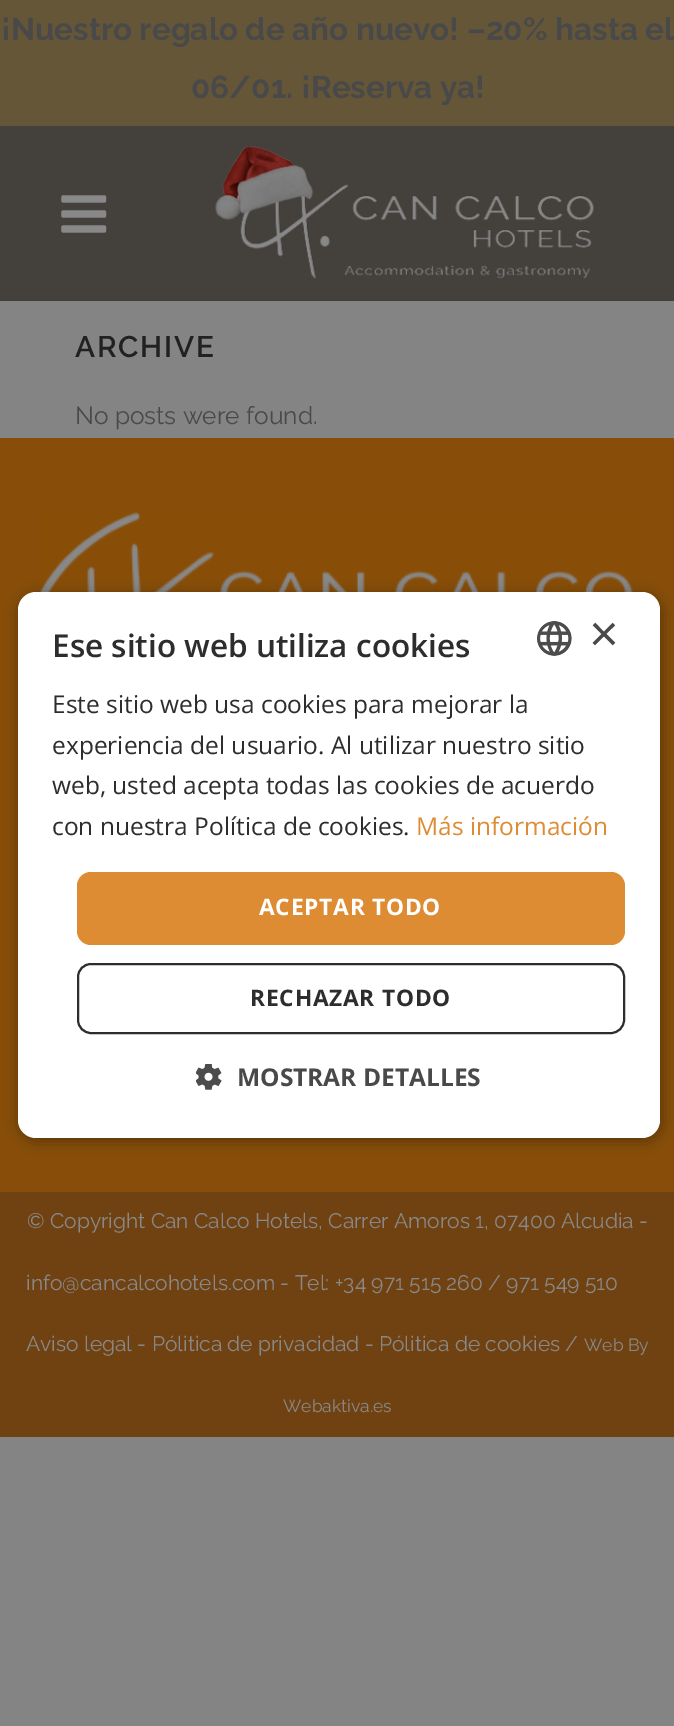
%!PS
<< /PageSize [674 1726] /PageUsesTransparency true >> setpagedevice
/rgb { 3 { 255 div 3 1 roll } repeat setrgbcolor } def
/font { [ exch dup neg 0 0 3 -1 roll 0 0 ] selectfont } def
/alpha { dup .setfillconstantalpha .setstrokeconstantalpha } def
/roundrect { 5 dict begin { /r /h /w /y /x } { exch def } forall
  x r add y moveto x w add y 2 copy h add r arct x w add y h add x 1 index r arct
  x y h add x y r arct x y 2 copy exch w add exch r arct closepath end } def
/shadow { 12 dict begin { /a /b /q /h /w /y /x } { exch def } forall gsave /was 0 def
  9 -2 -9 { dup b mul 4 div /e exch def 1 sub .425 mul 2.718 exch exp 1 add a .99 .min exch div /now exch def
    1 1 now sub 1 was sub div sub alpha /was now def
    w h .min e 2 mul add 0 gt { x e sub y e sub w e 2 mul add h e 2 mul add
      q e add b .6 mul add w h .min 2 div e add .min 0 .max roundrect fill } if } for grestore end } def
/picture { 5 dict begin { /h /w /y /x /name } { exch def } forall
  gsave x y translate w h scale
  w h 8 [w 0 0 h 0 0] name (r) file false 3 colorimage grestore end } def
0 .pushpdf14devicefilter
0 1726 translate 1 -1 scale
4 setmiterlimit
132 132 132 rgb
0 0 674 1726 rectfill
101 86 56 rgb
0 0 674 126 rectfill
68 64 60 rgb
0 126 674 175 rectfill
(img/1.rgb) 61 195 46 38 picture
(img/2.rgb) 214 146 381 133 picture
136 78 9 rgb
0 438 674 754 rectfill
(img/3.rgb) 39 512 594 80 picture
112 66 18 rgb
0 1192 674 245 rectfill
0 0 0 rgb
19 595 643 546 18 7 0.35 shadow
255 255 255 rgb
18 592 642 546 18 roundrect fill
(img/4.rgb) 537 621 35 35 picture
221 140 51 rgb
77 872 548 73 14 roundrect fill
45 45 45 rgb
2 setlinewidth
78 964 546 69 13 roundrect stroke
(img/5.rgb) 196 1064 26 26 picture
/Raleway-Bold 31.5 font
73 73 73 rgb
1 40 moveto (¡Nuestro regalo de año nuevo! –20% hasta el) show
191 98 moveto (06/01. ¡Reserva ya!) show
/Raleway-SemiBold 29.75 font
33 33 33 rgb
75 357 moveto 1.75 0 (ARCHIVE) ashow
/Raleway-Regular 24.5 font
73 73 73 rgb
75 424 moveto (No posts were found.) show
/Raleway-Regular 21 font
136 136 136 rgb
[
  [(© Copyright Can Calco Hotels, Carrer Amoros 1, 07400 Alcudia -) 27 1228]
  [(info@cancalcohotels.com - Tel: +34 971 515 260 / 971 549 510) 26 1290]
  [(Aviso legal - Pólitica de privacidad - Pólitica de cookies /) 26 1351]
] { aload pop moveto show } forall
/Raleway-Regular 17.5 font
584 1351 moveto (Web By) show
283 1412 moveto (Webaktiva.es) show
/OpenSans-SemiBold 31.5 font
45 45 45 rgb
52 657 moveto (Ese sitio web utiliza cookies) show
/LiberationSans-Regular 51 font
73 73 73 rgb
589 651 moveto (×) show
/OpenSans-Regular 24.5 font
45 45 45 rgb
[
  [(Este sitio web usa cookies para mejorar la) 52 713]
  [(experiencia del usuario. Al utilizar nuestro sitio) 52 754]
  [(web, usted acepta todas las cookies de acuerdo) 52 794]
  [(con nuestra Política de cookies.) 52 835]
] { aload pop moveto show } forall
221 140 51 rgb
416 835 moveto (Más información) show
/OpenSans-Bold 22.75 font
255 255 255 rgb
259 915 moveto 0.75 0 (ACEPTAR TODO) ashow
45 45 45 rgb
250 1006 moveto 0.75 0 (RECHAZAR TODO) ashow
/OpenSans-Bold 24.5 font
73 73 73 rgb
237 1086 moveto (MOSTRAR DETALLES) show
.poppdf14devicefilter showpage
